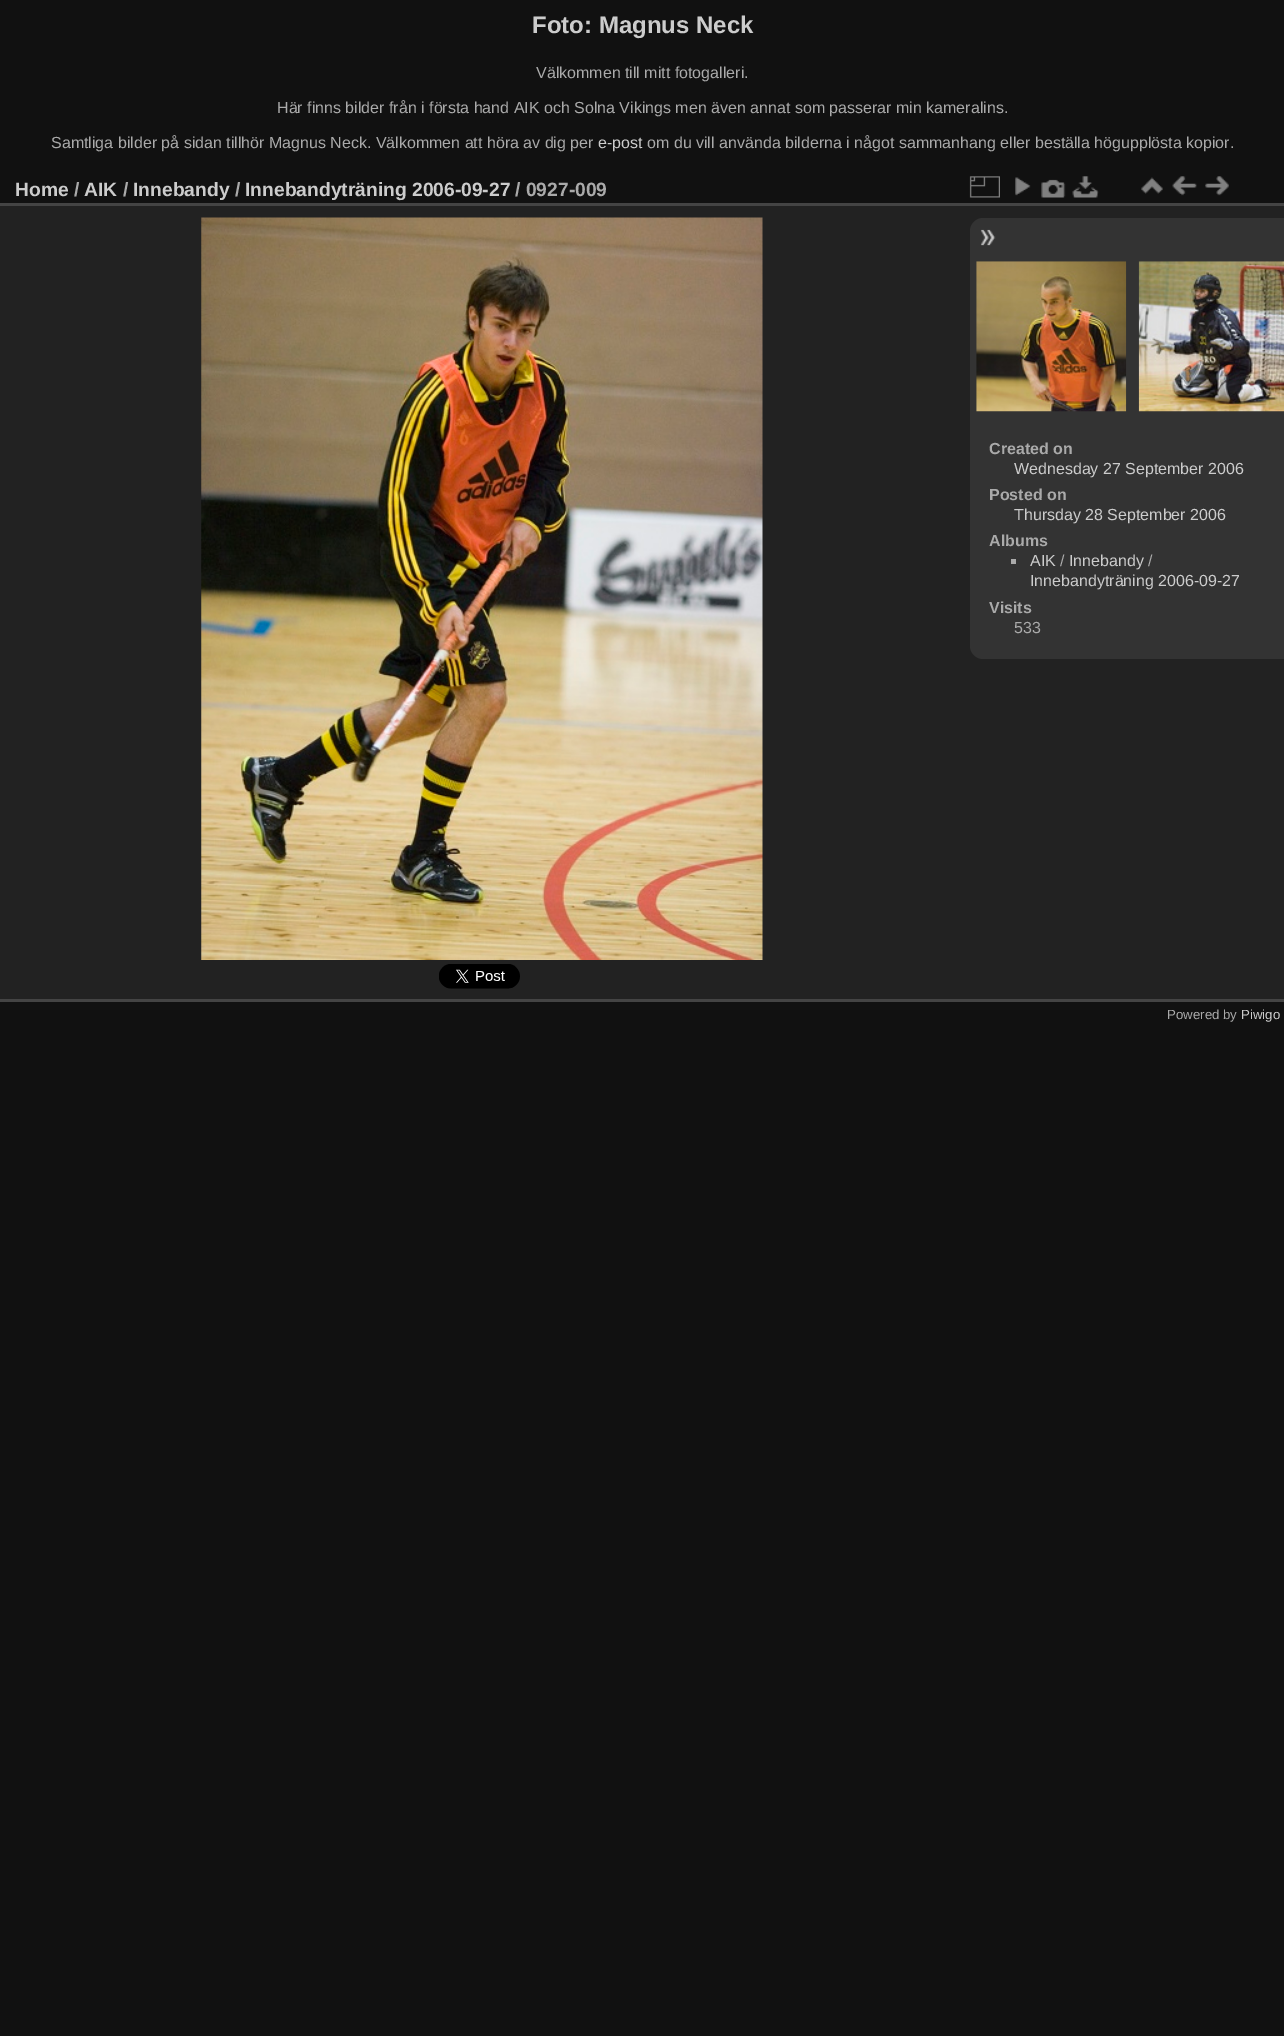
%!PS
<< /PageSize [1284 2036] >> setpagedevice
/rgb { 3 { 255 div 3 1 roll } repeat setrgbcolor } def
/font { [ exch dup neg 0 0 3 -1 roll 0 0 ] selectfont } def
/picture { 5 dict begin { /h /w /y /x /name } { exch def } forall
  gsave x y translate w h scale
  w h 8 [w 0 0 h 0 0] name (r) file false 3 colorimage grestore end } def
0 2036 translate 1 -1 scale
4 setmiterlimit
17 17 17 rgb
0 0 1284 2036 rectfill
[
  [0 206 1284 793 34 34 34]
  [0 999 1284 3 68 68 68]
  [0 203 1284 3 68 68 68]
] { aload pop rgb rectfill } forall
(img/1.rgb) 969 176 31 22 picture
(img/2.rgb) 1015 177 16 19 picture
(img/3.rgb) 1041 179 25 19 picture
(img/4.rgb) 1072 176 27 22 picture
(img/5.rgb) 1141 177 22 17 picture
(img/6.rgb) 1172 176 25 20 picture
(img/7.rgb) 1205 176 24 20 picture
(img/8.rgb) 201 217 562 743 picture
(img/9.rgb) 439 964 81 25 picture
51 51 51 rgb
983 218 moveto 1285 218 lineto 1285 659 lineto 983 659 lineto 976 659 970 653 970 646 curveto 970 231 lineto 970 224 976 218 983 218 curveto closepath fill
(img/10.rgb) 980 229 16 17 picture
(img/11.rgb) 976 261 151 151 picture
(img/12.rgb) 1138 261 146 151 picture
170 170 170 rgb
1011 559 5 5 rectfill
/LiberationSans-Bold 24 font
204 204 204 rgb
532 33 moveto (Foto: Magnus Neck) show
/LiberationSans-Regular 16 font
170 170 170 rgb
[
  [(Välkommen till mitt fotogalleri.) 536 78]
  [(Här finns bilder från i första hand AIK och Solna Vikings men även annat som passerar min kameralins.) 277 113]
  [(Samtliga bilder på sidan tillhör Magnus Neck. Välkommen att höra av dig per) 51 148]
] { aload pop moveto show } forall
204 204 204 rgb
598 148 moveto (e-post) show
170 170 170 rgb
647 148 moveto (om du vill använda bilderna i något sammanhang eller beställa högupplösta kopior.) show
/LiberationSans-Bold 19.25 font
204 204 204 rgb
15 196 moveto (Home) show
170 170 170 rgb
74 196 moveto (/) show
204 204 204 rgb
84 196 moveto (AIK) show
170 170 170 rgb
123 196 moveto (/) show
204 204 204 rgb
133 196 moveto (Innebandy) show
170 170 170 rgb
235 196 moveto (/) show
204 204 204 rgb
245 196 moveto (Innebandyträning 2006-09-27) show
170 170 170 rgb
515 196 moveto (/ 0927-009) show
/LiberationSans-Bold 16 font
989 454 moveto (Created on) show
/LiberationSans-Regular 16 font
204 204 204 rgb
1014 474 moveto (Wednesday 27 September 2006) show
/LiberationSans-Bold 16 font
170 170 170 rgb
989 500 moveto (Posted on) show
/LiberationSans-Regular 16 font
204 204 204 rgb
1014 520 moveto (Thursday 28 September 2006) show
/LiberationSans-Bold 16 font
170 170 170 rgb
989 546 moveto (Albums) show
/LiberationSans-Regular 16 font
204 204 204 rgb
1030 566 moveto (AIK) show
170 170 170 rgb
1060 566 moveto (/) show
204 204 204 rgb
1069 566 moveto (Innebandy) show
170 170 170 rgb
1148 566 moveto (/) show
204 204 204 rgb
1030 586 moveto (Innebandyträning 2006-09-27) show
/LiberationSans-Bold 16 font
170 170 170 rgb
989 613 moveto (Visits) show
/LiberationSans-Regular 16 font
1014 633 moveto (533) show
/LiberationSans-Regular 13.25 font
1167 1019 moveto (Powered by) show
204 204 204 rgb
1241 1019 moveto (Piwigo) show
showpage
